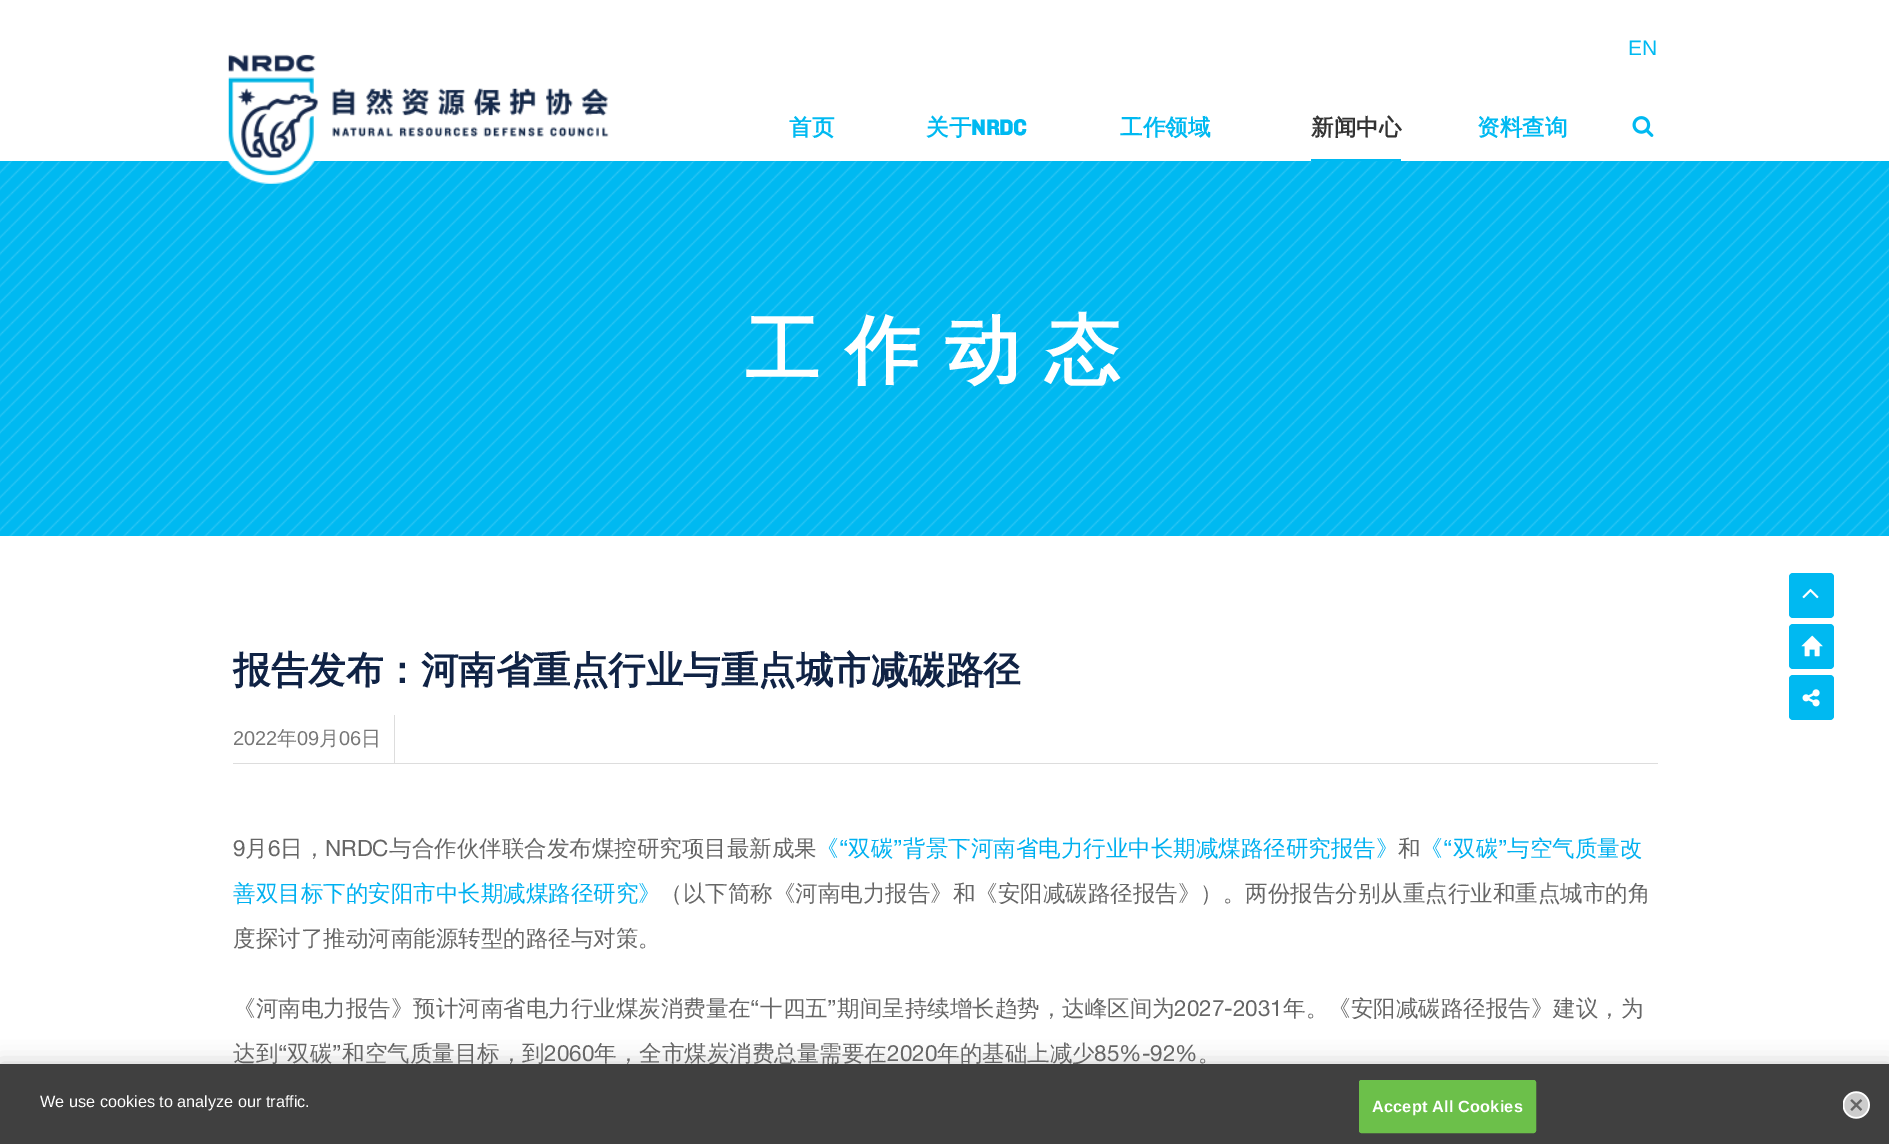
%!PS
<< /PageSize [1889 1144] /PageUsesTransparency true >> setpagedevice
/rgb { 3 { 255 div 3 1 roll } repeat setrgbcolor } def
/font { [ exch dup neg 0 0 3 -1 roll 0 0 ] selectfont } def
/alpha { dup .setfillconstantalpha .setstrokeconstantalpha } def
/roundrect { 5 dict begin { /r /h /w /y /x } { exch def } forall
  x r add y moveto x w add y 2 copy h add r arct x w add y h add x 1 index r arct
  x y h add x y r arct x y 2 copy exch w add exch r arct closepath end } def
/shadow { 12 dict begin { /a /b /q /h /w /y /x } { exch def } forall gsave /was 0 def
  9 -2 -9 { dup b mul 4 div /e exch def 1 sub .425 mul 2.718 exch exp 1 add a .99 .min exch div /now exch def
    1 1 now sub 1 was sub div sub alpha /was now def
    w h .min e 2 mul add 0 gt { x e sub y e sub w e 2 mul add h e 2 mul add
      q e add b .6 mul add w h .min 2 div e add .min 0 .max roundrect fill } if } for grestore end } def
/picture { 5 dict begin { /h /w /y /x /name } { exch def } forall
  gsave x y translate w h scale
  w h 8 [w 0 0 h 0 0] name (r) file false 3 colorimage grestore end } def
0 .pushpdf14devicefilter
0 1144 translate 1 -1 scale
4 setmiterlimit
255 255 255 rgb
0 0 1889 1144 rectfill
0 185 241 rgb
0 161 1889 375 rectfill
(img/3.rgb) 0 161 1889 375 picture
(img/1.rgb) 227 54 382 130 picture
1311 159 90 2 rectfill
(img/2.rgb) 1632 116 22 21 picture
221 221 221 rgb
233 763 1425 1 rectfill
394 715 1 48 rectfill
0 185 241 rgb
1789 573 45 45 4 roundrect fill
(img/4.rgb) 1802 588 17 11 picture
1789 624 45 45 4 roundrect fill
(img/5.rgb) 1801 635 22 22 picture
1789 675 45 45 4 roundrect fill
(img/6.rgb) 1802 689 18 18 picture
0 0 0 rgb
0 1064 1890 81 0 11 0.2 shadow
/LiberationSans-Regular 21 font
0 185 241 rgb
1628 55 moveto (EN) show
/WenQuanYiZenHei-Bold 22.5 font
789 135 moveto (首页) show
926 135 moveto (关于) show
/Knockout-Bold 22.5 font
971 135 moveto (NRDC) show
/WenQuanYiZenHei-Bold 22.5 font
1120 135 moveto (工作领域) show
51 51 51 rgb
1311 135 moveto (新闻中心) show
0 185 241 rgb
1477 135 moveto (资料查询) show
/WenQuanYiZenHei-Bold 75 font
255 255 255 rgb
745 376 moveto 25 0 (工作动态) ashow
/WenQuanYiZenHei-Bold 37.5 font
16 35 69 rgb
233 683 moveto (报告发布：河南省重点行业与重点城市减碳路径) show
/LiberationSans-Regular 20 font
119 119 119 rgb
233 745 moveto (2022) show
/WenQuanYiZenHei-Medium 20 font
277 745 moveto (年) show
/LiberationSans-Regular 20 font
297 745 moveto (09) show
/WenQuanYiZenHei-Medium 20 font
319 745 moveto (月) show
/LiberationSans-Regular 20 font
339 745 moveto (06) show
/WenQuanYiZenHei-Medium 20 font
361 745 moveto (日) show
/HelveticaNeue-Regular 22.5 font
102 102 102 rgb
233 856 moveto (9) show
/WenQuanYiZenHei-Medium 22.5 font
245 856 moveto (月) show
/HelveticaNeue-Regular 22.5 font
268 856 moveto (6) show
/WenQuanYiZenHei-Medium 22.5 font
280 856 moveto (日，) show
/HelveticaNeue-Regular 22.5 font
325 856 moveto (NRDC) show
/WenQuanYiZenHei-Medium 22.5 font
389 856 moveto (与合作伙伴联合发布煤控研究项目最新成果) show
0 176 240 rgb
816 856 moveto (《) show
/HelveticaNeue-Regular 22.5 font
839 856 moveto (“) show
/WenQuanYiZenHei-Medium 22.5 font
848 856 moveto (双碳) show
/HelveticaNeue-Regular 22.5 font
893 856 moveto (”) show
/WenQuanYiZenHei-Medium 22.5 font
903 856 moveto (背景下河南省电力行业中长期减煤路径研究报告》) show
102 102 102 rgb
1398 856 moveto (和) show
0 176 240 rgb
1420 856 moveto (《) show
/HelveticaNeue-Regular 22.5 font
1443 856 moveto (“) show
/WenQuanYiZenHei-Medium 22.5 font
1453 856 moveto (双碳) show
/HelveticaNeue-Regular 22.5 font
1498 856 moveto (”) show
/WenQuanYiZenHei-Medium 22.5 font
1507 856 moveto (与空气质量改) show
233 901 moveto (善双目标下的安阳市中长期减煤路径研究》) show
102 102 102 rgb
[
  [(（以下简称《河南电力报告》和《安阳减碳路径报告》）。两份报告分别从重点行业和重点城市的角) 660 901]
  [(度探讨了推动河南能源转型的路径与对策。) 233 946]
  [(《河南电力报告》预计河南省电力行业煤炭消费量在) 233 1016]
] { aload pop moveto show } forall
/HelveticaNeue-Regular 22.5 font
750 1016 moveto (“) show
/WenQuanYiZenHei-Medium 22.5 font
760 1016 moveto (十四五) show
/HelveticaNeue-Regular 22.5 font
827 1016 moveto (”) show
/WenQuanYiZenHei-Medium 22.5 font
837 1016 moveto (期间呈持续增长趋势，达峰区间为) show
/HelveticaNeue-Regular 22.5 font
1174 1016 moveto (2027-2031) show
/WenQuanYiZenHei-Medium 22.5 font
1283 1016 moveto (年。《安阳减碳路径报告》建议，为) show
233 1061 moveto (达到) show
/HelveticaNeue-Regular 22.5 font
278 1061 moveto (“) show
/WenQuanYiZenHei-Medium 22.5 font
287 1061 moveto (双碳) show
/HelveticaNeue-Regular 22.5 font
332 1061 moveto (”) show
/WenQuanYiZenHei-Medium 22.5 font
342 1061 moveto (和空气质量目标，到) show
/HelveticaNeue-Regular 22.5 font
544 1061 moveto (2060) show
/WenQuanYiZenHei-Medium 22.5 font
594 1061 moveto (年，全市煤炭消费总量需要在) show
/HelveticaNeue-Regular 22.5 font
887 1061 moveto (2020) show
/WenQuanYiZenHei-Medium 22.5 font
937 1061 moveto (年的基础上减少) show
/HelveticaNeue-Regular 22.5 font
1094 1061 moveto (85%-92%) show
/WenQuanYiZenHei-Medium 22.5 font
1198 1061 moveto (。) show
64 64 64 rgb
0 1064 1889 80 rectfill
/LiberationSans-Regular 16.25 font
255 255 255 rgb
40 1107 moveto (We use cookies to analyze our traffic.) show
108 192 74 rgb
1359.5 1080.5 176 52 2 roundrect gsave fill grestore
stroke
/LiberationSans-Bold 16.25 font
255 255 255 rgb
1372 1112 moveto 0.2 0 (Accept All Cookies) ashow
(img/7.rgb) 1843 1091 27 28 picture
.poppdf14devicefilter showpage
